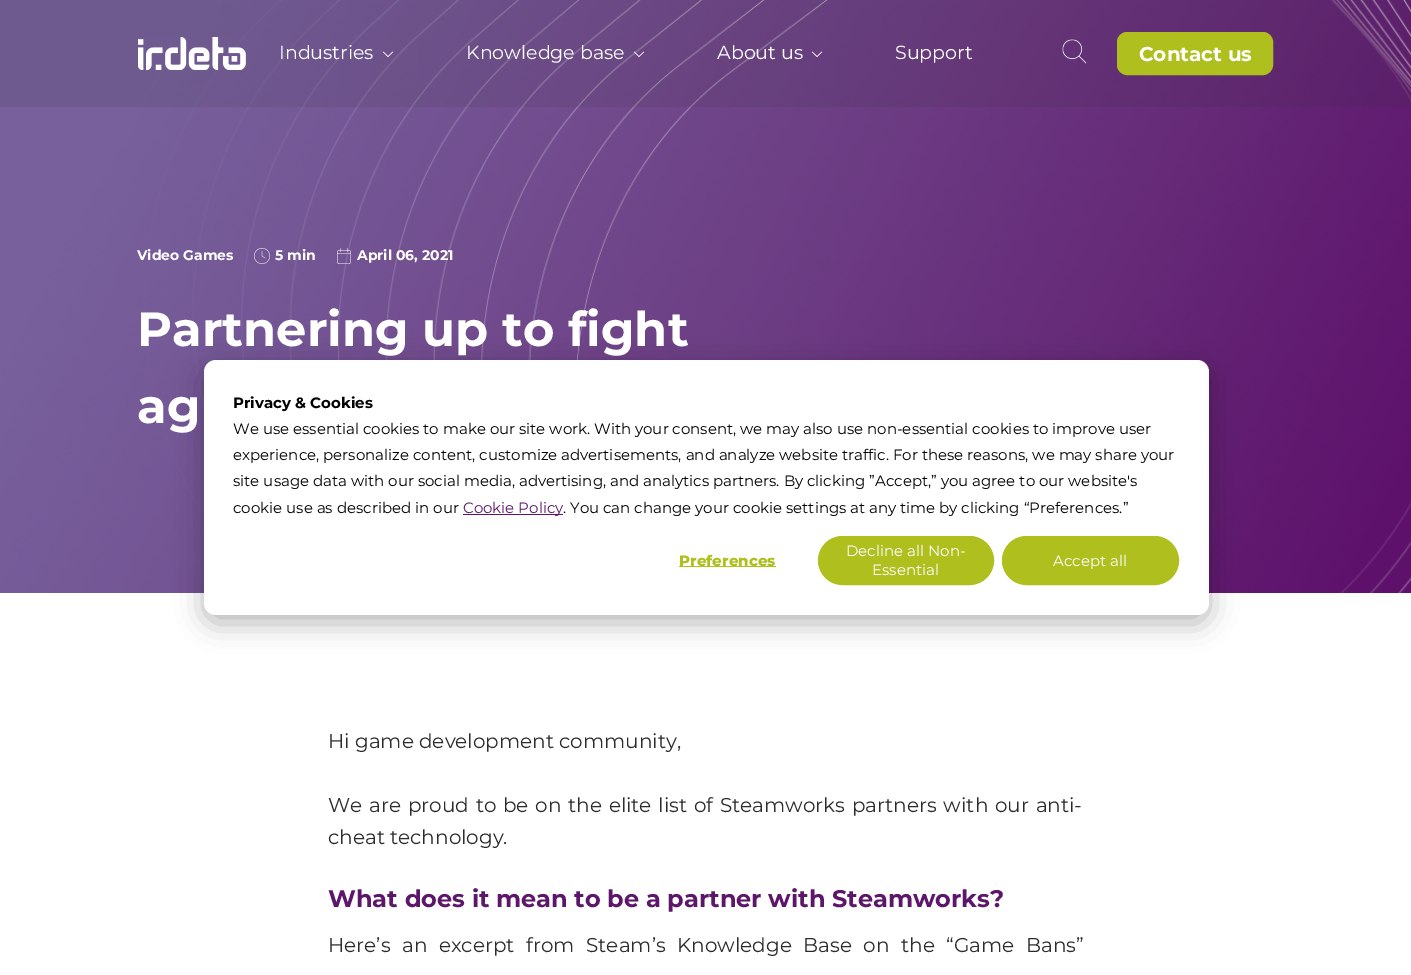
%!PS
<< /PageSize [1411 975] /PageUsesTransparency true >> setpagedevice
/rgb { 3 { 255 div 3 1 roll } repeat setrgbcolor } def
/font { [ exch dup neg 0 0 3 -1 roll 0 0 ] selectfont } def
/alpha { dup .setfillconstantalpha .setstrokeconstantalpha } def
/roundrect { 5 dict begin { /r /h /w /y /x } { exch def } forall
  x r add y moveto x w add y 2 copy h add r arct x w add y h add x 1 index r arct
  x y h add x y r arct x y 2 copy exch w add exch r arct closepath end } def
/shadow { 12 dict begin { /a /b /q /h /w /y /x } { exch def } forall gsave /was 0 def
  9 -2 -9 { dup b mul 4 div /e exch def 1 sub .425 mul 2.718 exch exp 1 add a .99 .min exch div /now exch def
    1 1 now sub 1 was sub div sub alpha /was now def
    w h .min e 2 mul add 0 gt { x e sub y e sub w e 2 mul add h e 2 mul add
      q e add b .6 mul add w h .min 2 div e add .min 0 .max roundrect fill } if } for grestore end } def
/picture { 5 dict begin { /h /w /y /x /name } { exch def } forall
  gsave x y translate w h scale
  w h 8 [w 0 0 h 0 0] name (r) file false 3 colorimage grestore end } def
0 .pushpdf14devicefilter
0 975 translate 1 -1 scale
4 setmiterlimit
255 255 255 rgb
0 0 1411 975 rectfill
(img/6.rgb) 0 0 1411 593 picture
0.1 alpha
44 42 42 rgb
0 0 1411 107 rectfill
1 alpha
(img/1.rgb) 138 37 108 33 picture
(img/2.rgb) 382 51 12 6 picture
(img/3.rgb) 633 51 12 6 picture
(img/4.rgb) 811 51 12 6 picture
(img/5.rgb) 1062 39 25 25 picture
174 191 30 rgb
1118 33 154 41 9 roundrect gsave fill grestore
2 setlinewidth
stroke
(img/7.rgb) 254 248 16 16 picture
(img/8.rgb) 337 248 14 16 picture
0 0 0 rgb
204 368 1005 255 12 14 0.28 shadow
255 255 255 rgb
204 360 1005 255 12 roundrect fill
93 23 106 rgb
463 514 100 1 rectfill
174 191 30 rgb
679 566 97 1 rectfill
818.5 536.5 175 48 24 roundrect gsave fill grestore
1 setlinewidth
stroke
1002.5 536.5 176 48 24 roundrect gsave fill grestore
stroke
/Montserrat-Regular 19 font
255 255 255 rgb
[
  [(Industries) 279 59]
  [(Knowledge base) 466 59]
  [(About us) 717 59]
  [(Support) 895 59]
] { aload pop moveto show } forall
/Montserrat-Bold 20 font
1139 61 moveto (Contact us) show
/Montserrat-Bold 14 font
[
  [(Video Games) 137 260]
  [(5 min) 275 260]
  [(April 06, 2021) 357 260]
] { aload pop moveto show } forall
/Montserrat-Bold 48 font
137 346 moveto (Partnering up to fight) show
137 423 moveto (ag) show
/Montserrat-Regular 20 font
44 44 44 rgb
328 748 moveto (Hi game development community,) show
328 812 moveto 1.5 0 32 (We are proud to be on the elite list of Steamworks partners with our anti-) widthshow
328 844 moveto (cheat technology.) show
/Montserrat-Bold 24 font
93 23 106 rgb
328 907 moveto (What does it mean to be a partner with Steamworks?) show
/Montserrat-Regular 20 font
44 44 44 rgb
328 952 moveto 6.25 0 32 (Here’s an excerpt from Steam’s Knowledge Base on the “Game Bans”) widthshow
/Montserrat-Bold 15 font
0 0 0 rgb
233 408 moveto (Privacy & Cookies) show
/Montserrat-Regular 15 font
[
  [(We use essential cookies to make our site work. With your consent, we may also use non-essential cookies to improve user) 233 434]
  [(experience, personalize content, customize advertisements, and analyze website traffic. For these reasons, we may share your) 233 460]
  [(site usage data with our social media, advertising, and analytics partners. By clicking ”Accept,” you agree to our website's) 233 486]
  [(cookie use as described in our) 233 513]
] { aload pop moveto show } forall
93 23 106 rgb
463 513 moveto (Cookie Policy) show
0 0 0 rgb
563 513 moveto (. You can change your cookie settings at any time by clicking “Preferences.”) show
/Montserrat-ExtraBold 15 font
174 191 30 rgb
679 566 moveto (Preferences) show
/Montserrat-Regular 15 font
255 255 255 rgb
[
  [(Decline all Non-) 846 556]
  [(Essential) 872 575]
  [(Accept all) 1053 566]
] { aload pop moveto show } forall
.poppdf14devicefilter showpage
